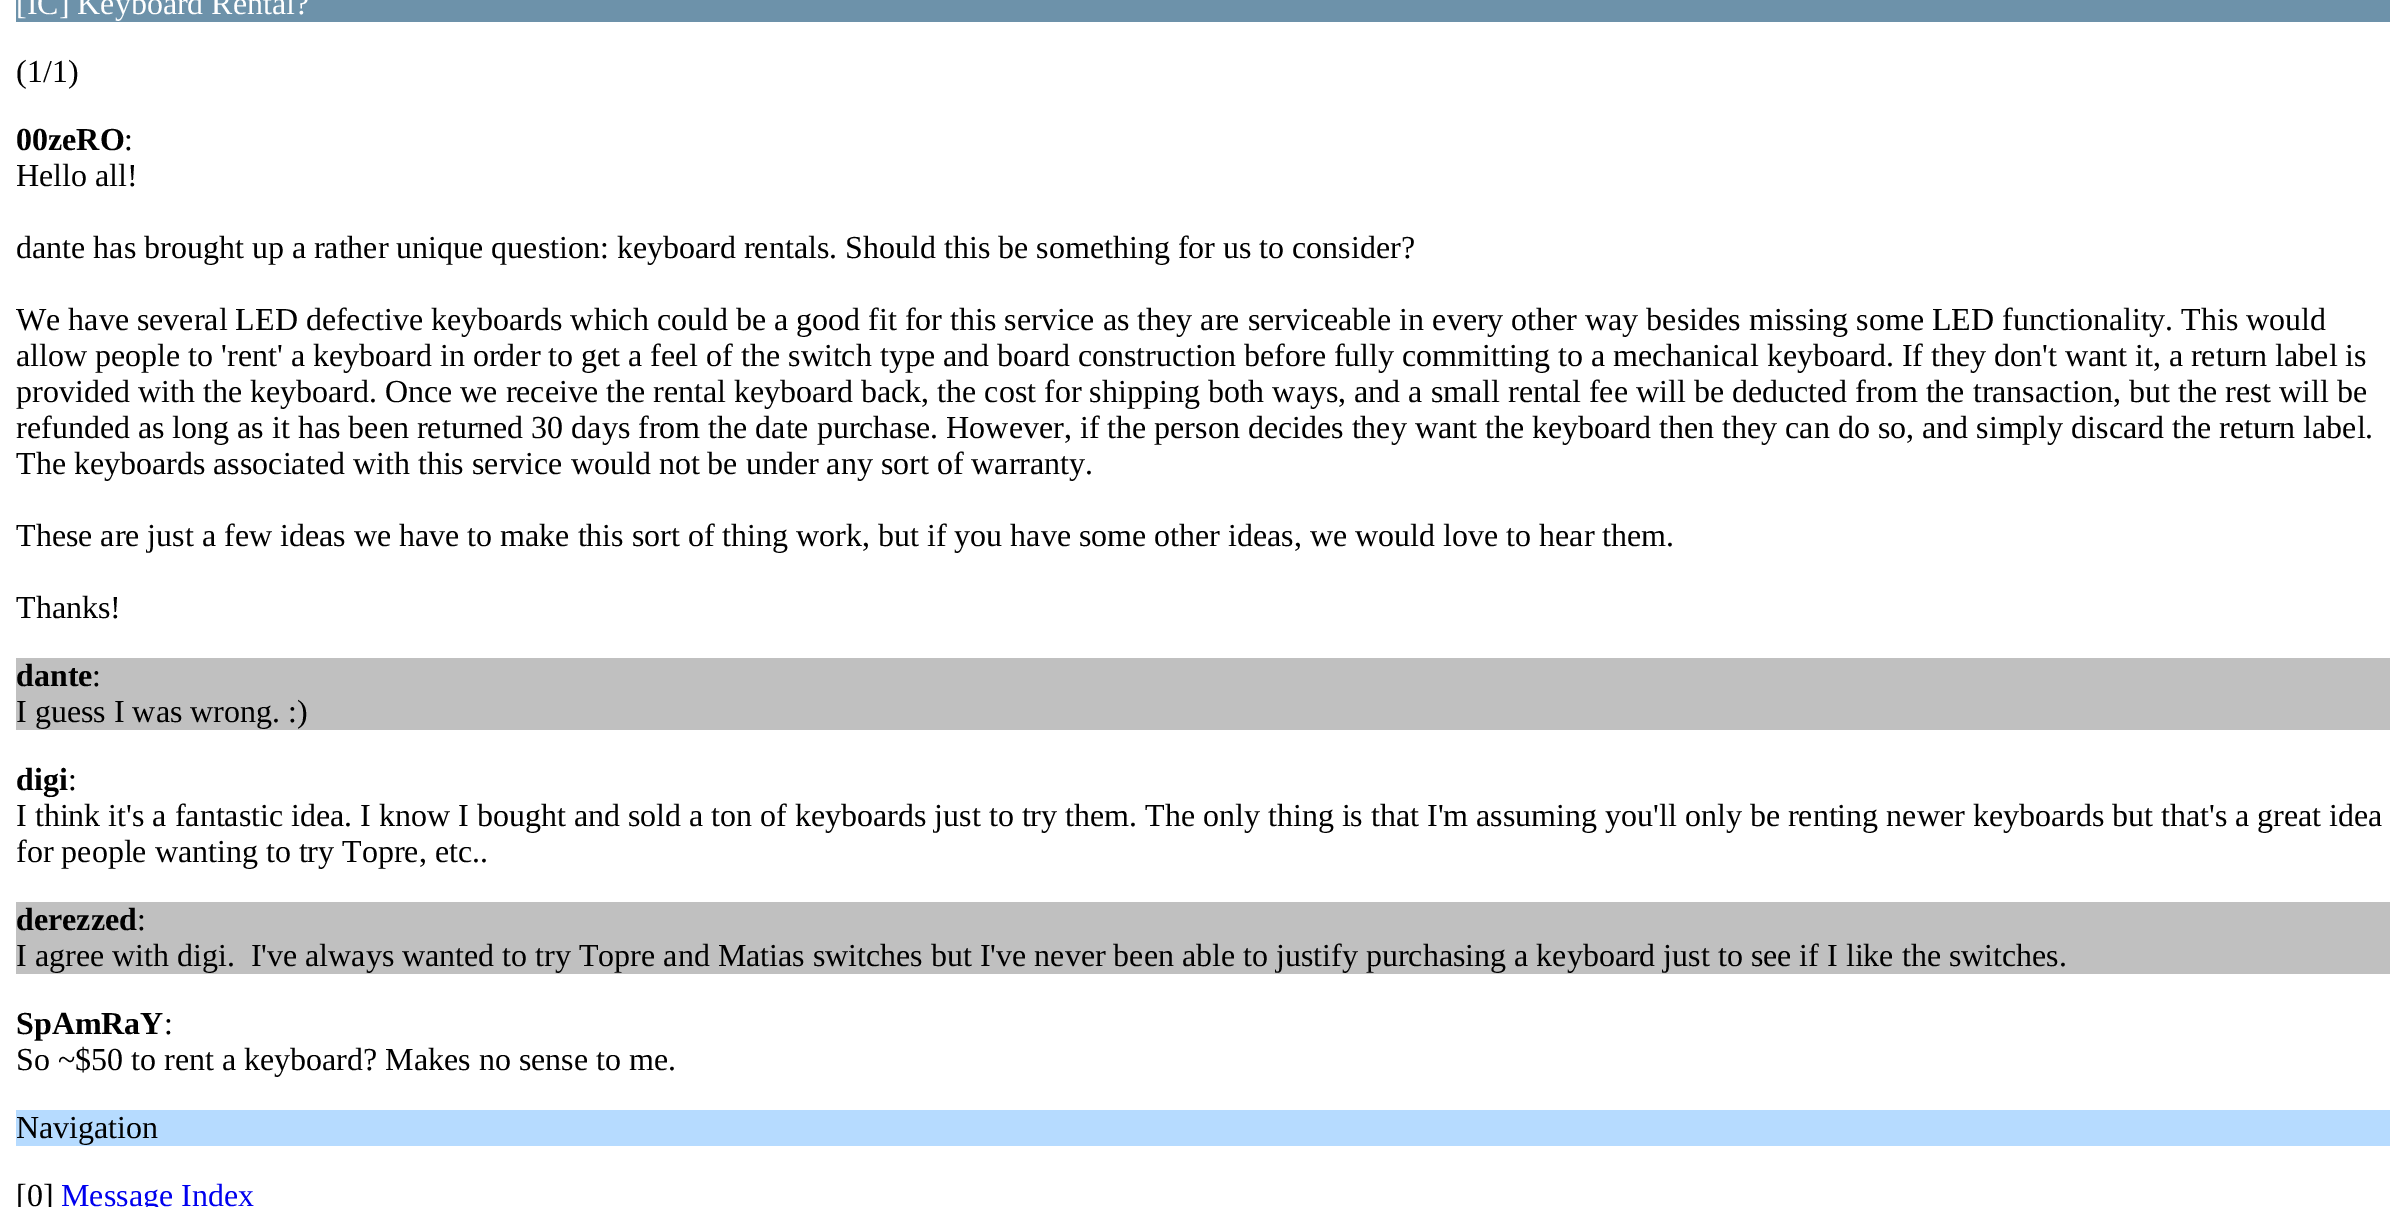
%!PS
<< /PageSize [2405 1207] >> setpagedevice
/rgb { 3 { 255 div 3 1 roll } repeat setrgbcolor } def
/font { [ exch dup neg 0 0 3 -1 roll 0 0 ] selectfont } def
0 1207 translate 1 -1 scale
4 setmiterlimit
255 255 255 rgb
0 0 2405 1207 rectfill
[
  [16 0 2374 22 109 146 170]
  [16 658 2374 72 192 192 192]
  [16 902 2374 72 192 192 192]
  [16 1110 2374 36 182 219 255]
] { aload pop rgb rectfill } forall
/LiberationSerif-Regular 32 font
255 255 255 rgb
16 14 moveto ([IC] Keyboard Rental?) show
0 0 0 rgb
16 82 moveto (\(1/1\)) show
/LiberationSerif-Bold 32 font
16 150 moveto (00zeRO) show
/LiberationSerif-Regular 32 font
[
  [(:) 124 150]
  [(Hello all!) 16 186]
  [(dante has brought up a rather unique question: keyboard rentals. Should this be something for us to consider?) 16 258]
  [(We have several LED defective keyboards which could be a good fit for this service as they are serviceable in every other way besides missing some LED functionality. This would) 16 330]
  [(allow people to 'rent' a keyboard in order to get a feel of the switch type and board construction before fully committing to a mechanical keyboard. If they don't want it, a return label is) 16 366]
  [(provided with the keyboard. Once we receive the rental keyboard back, the cost for shipping both ways, and a small rental fee will be deducted from the transaction, but the rest will be) 16 402]
  [(refunded as long as it has been returned 30 days from the date purchase. However, if the person decides they want the keyboard then they can do so, and simply discard the return label.) 16 438]
  [(The keyboards associated with this service would not be under any sort of warranty.) 16 474]
  [(These are just a few ideas we have to make this sort of thing work, but if you have some other ideas, we would love to hear them.) 16 546]
  [(Thanks!) 16 618]
] { aload pop moveto show } forall
/LiberationSerif-Bold 32 font
16 686 moveto (dante) show
/LiberationSerif-Regular 32 font
92 686 moveto (:) show
16 722 moveto (I guess I was wrong. :\)) show
/LiberationSerif-Bold 32 font
16 790 moveto (digi) show
/LiberationSerif-Regular 32 font
[
  [(:) 68 790]
  [(I think it's a fantastic idea. I know I bought and sold a ton of keyboards just to try them. The only thing is that I'm assuming you'll only be renting newer keyboards but that's a great idea) 16 826]
  [(for people wanting to try Topre, etc..) 16 862]
] { aload pop moveto show } forall
/LiberationSerif-Bold 32 font
16 930 moveto (derezzed) show
/LiberationSerif-Regular 32 font
137 930 moveto (:) show
16 966 moveto (I agree with digi.  I've always wanted to try Topre and Matias switches but I've never been able to justify purchasing a keyboard just to see if I like the switches.) show
/LiberationSerif-Bold 32 font
16 1034 moveto (SpAmRaY) show
/LiberationSerif-Regular 32 font
[
  [(:) 164 1034]
  [(So ~$50 to rent a keyboard? Makes no sense to me.) 16 1070]
  [(Navigation) 16 1138]
  [([0]) 16 1206]
] { aload pop moveto show } forall
0 0 238 rgb
61 1206 moveto (Message Index) show
showpage
